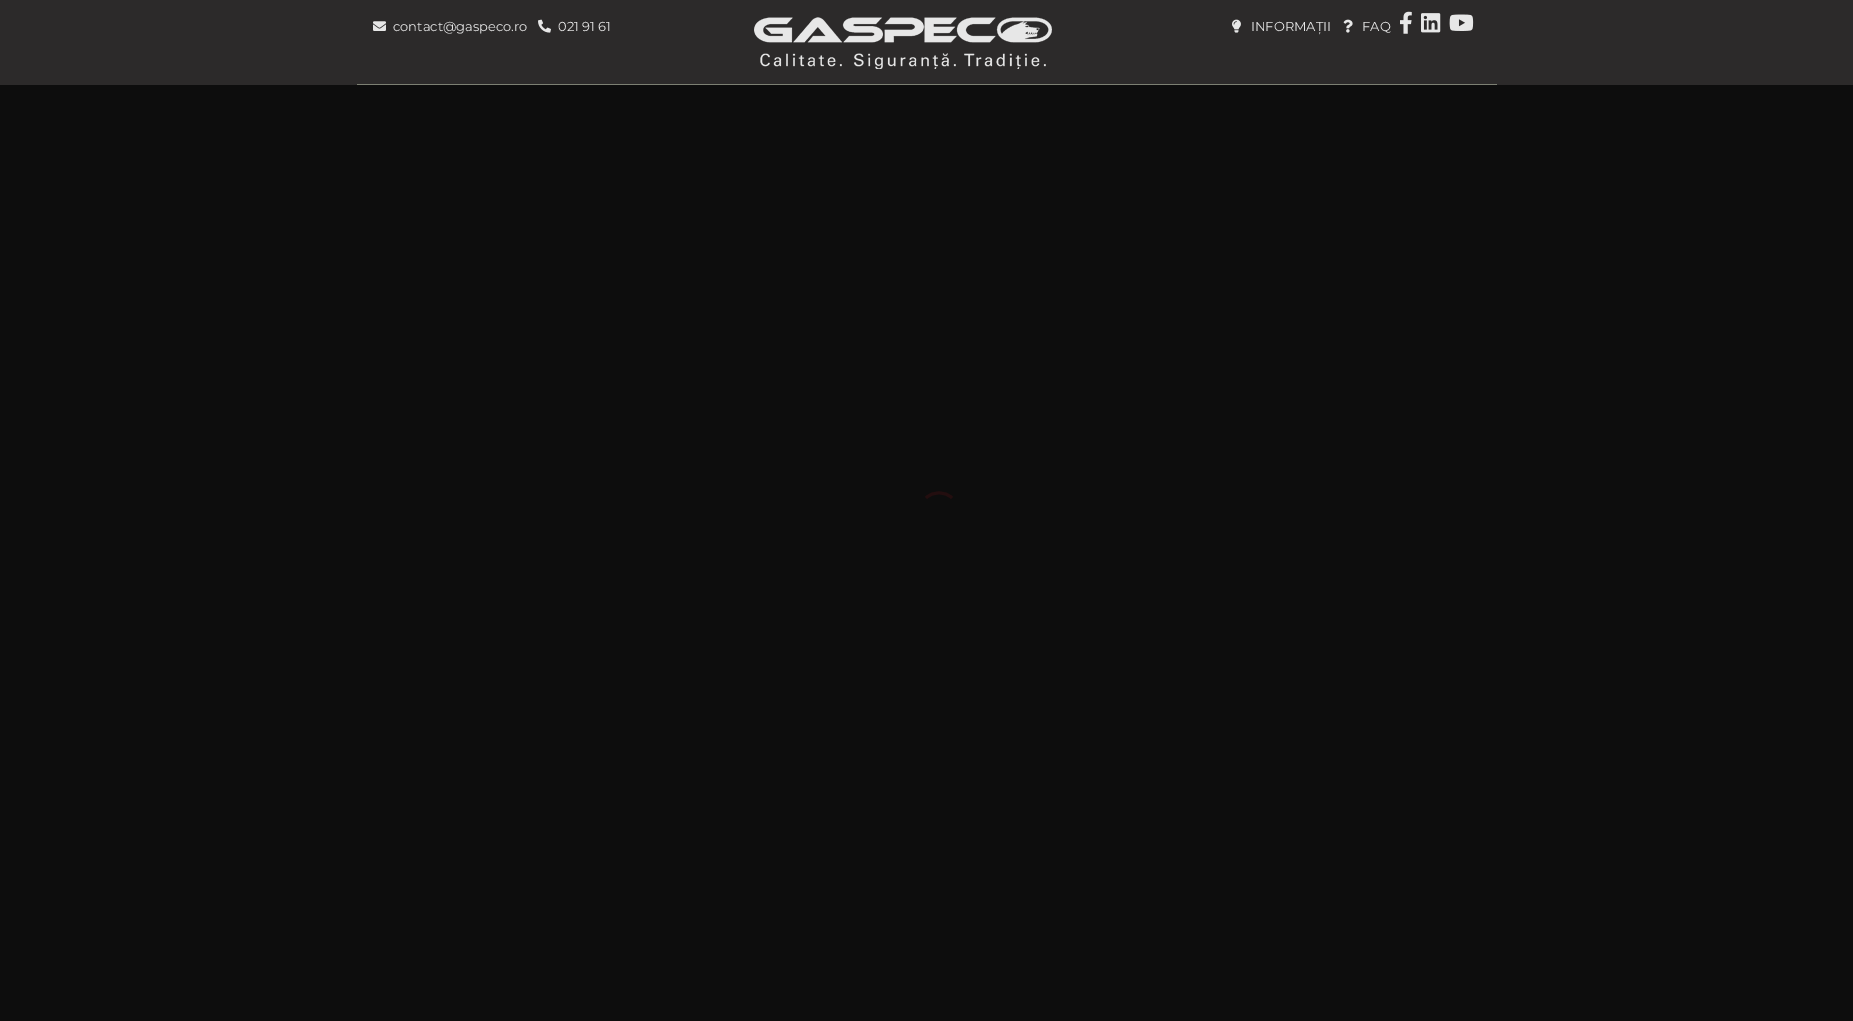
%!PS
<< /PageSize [1853 1021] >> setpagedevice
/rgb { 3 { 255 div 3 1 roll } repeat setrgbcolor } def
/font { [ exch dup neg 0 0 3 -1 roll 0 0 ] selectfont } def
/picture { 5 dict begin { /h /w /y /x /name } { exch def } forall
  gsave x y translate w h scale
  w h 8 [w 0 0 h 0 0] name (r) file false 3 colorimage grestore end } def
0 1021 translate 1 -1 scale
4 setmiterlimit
13 13 13 rgb
0 0 1853 1021 rectfill
44 42 42 rgb
0 0 1853 85 rectfill
125 128 115 rgb
357 84 1140 1 rectfill
(img/1.rgb) 373 21 13 10 picture
(img/2.rgb) 538 19 13 14 picture
(img/3.rgb) 754 17 298 52 picture
(img/4.rgb) 1232 19 9 14 picture
(img/5.rgb) 1343 19 10 14 picture
(img/6.rgb) 1400 11 12 23 picture
(img/7.rgb) 1421 13 20 20 picture
(img/8.rgb) 1449 14 25 17 picture
35 14 15 rgb
3 setlinewidth
926 498 moveto 933 491 945 491 952 498 curveto stroke
/Montserrat-Regular 13 font
231 231 231 rgb
[
  [(contact@gaspeco.ro) 393 31]
  [(021 91 61) 558 31]
  [(INFORMAȚII) 1251 31]
  [(FAQ) 1362 31]
] { aload pop moveto show } forall
showpage
